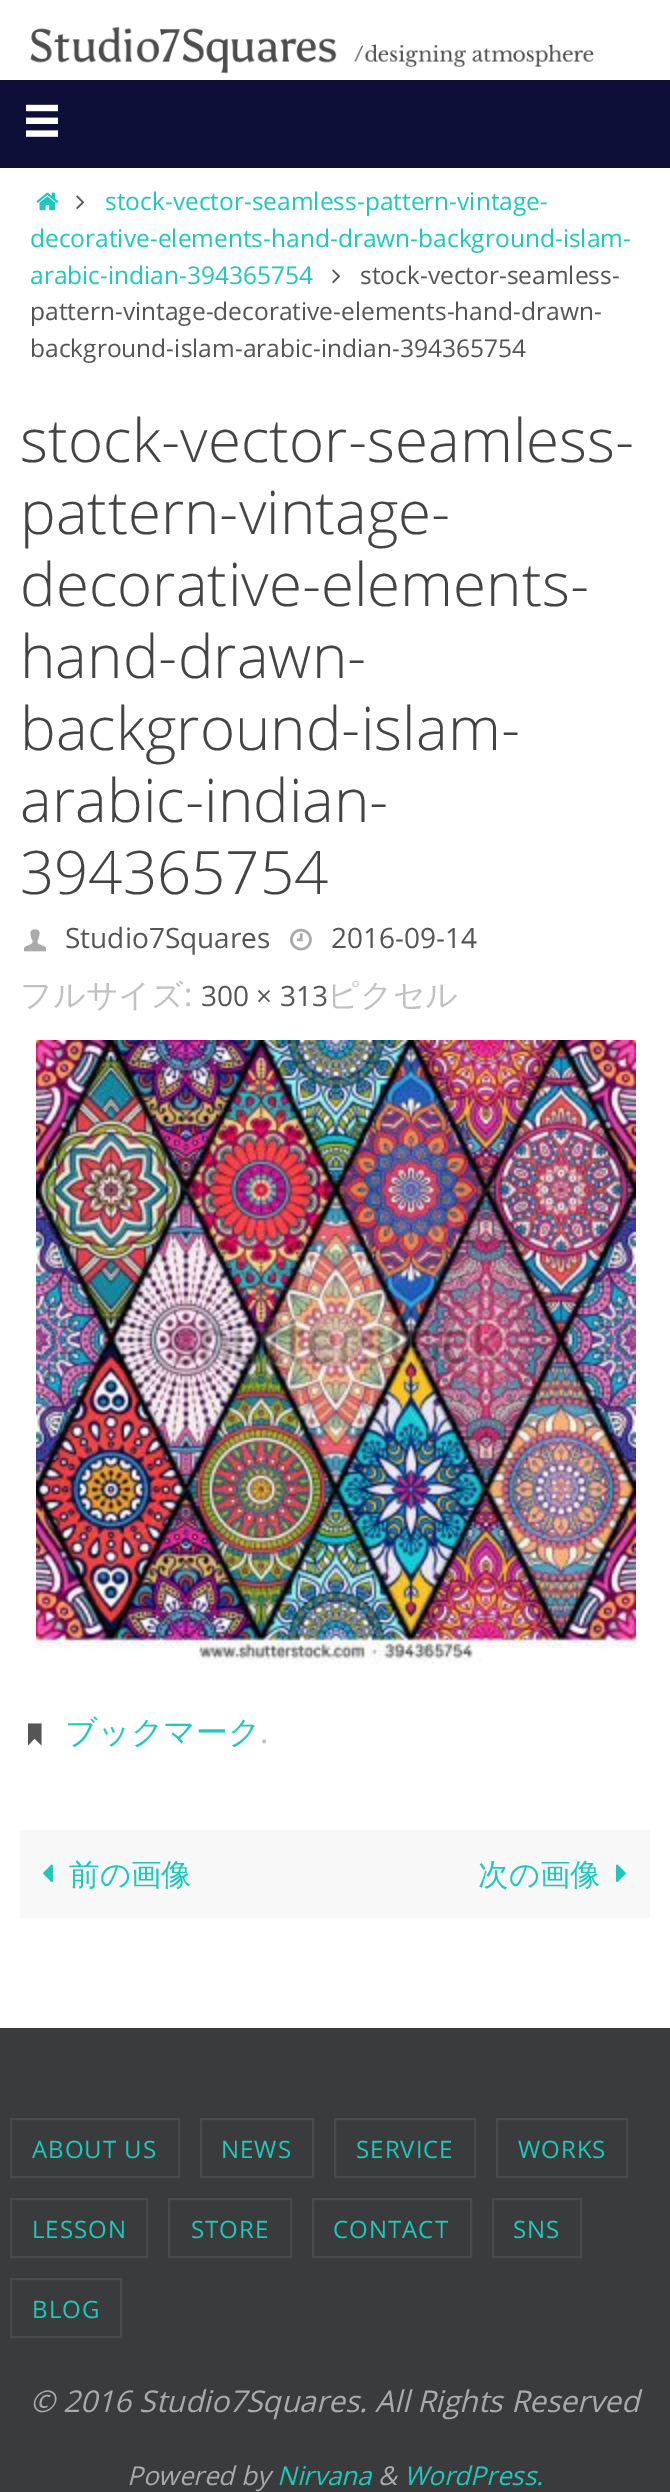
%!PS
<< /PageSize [670 2492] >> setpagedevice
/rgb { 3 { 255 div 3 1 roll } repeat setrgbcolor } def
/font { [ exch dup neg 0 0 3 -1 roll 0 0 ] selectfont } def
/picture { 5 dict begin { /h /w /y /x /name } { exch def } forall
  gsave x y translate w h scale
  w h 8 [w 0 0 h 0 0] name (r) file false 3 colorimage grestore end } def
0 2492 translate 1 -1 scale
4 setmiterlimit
255 255 255 rgb
0 0 670 2492 rectfill
(img/1.rgb) 30 26 564 48 picture
14 15 57 rgb
0 80 670 88 rectfill
(img/2.rgb) 26 104 32 33 picture
(img/3.rgb) 36 192 23 19 picture
(img/4.rgb) 76 195 9 15 picture
(img/4.rgb) 332 269 9 15 picture
(img/5.rgb) 24 929 22 23 picture
(img/6.rgb) 290 928 22 23 picture
(img/7.rgb) 36 1040 600 624 picture
85 85 85 rgb
28 1743 moveto 28 1723.5 lineto 41.5 1723.5 lineto 41.5 1745.5 lineto 34.5 1738.5 lineto 28 1745.5 lineto closepath fill
248 248 248 rgb
20 1830 630 88 rectfill
(img/8.rgb) 43 1864 10 18 picture
(img/9.rgb) 616 1864 10 18 picture
58 59 61 rgb
0 2028 670 464 rectfill
73 74 76 rgb
2 setlinewidth
11 2119 168 58 rectstroke
201 2119 112 58 rectstroke
335 2119 140 58 rectstroke
497 2119 130 58 rectstroke
11 2199 136 58 rectstroke
169 2199 122 58 rectstroke
313 2199 158 58 rectstroke
493 2199 88 58 rectstroke
11 2279 110 58 rectstroke
/OpenSans-Regular 24.5 font
30 200 187 rgb
[
  [(stock-vector-seamless-pattern-vintage-) 105 210]
  [(decorative-elements-hand-drawn-background-islam-) 30 247]
  [(arabic-indian-394365754) 30 284]
] { aload pop moveto show } forall
85 85 85 rgb
[
  [(stock-vector-seamless-) 360 284]
  [(pattern-vintage-decorative-elements-hand-drawn-) 30 320]
  [(background-islam-arabic-indian-394365754) 30 357]
] { aload pop moveto show } forall
/OpenSans-Light 60 font
68 68 68 rgb
[
  [(stock-vector-seamless-) 20 462]
  [(pattern-vintage-) 20 534]
  [(decorative-elements-) 20 606]
  [(hand-drawn-) 20 678]
  [(background-islam-) 20 750]
  [(arabic-indian-) 20 822]
  [(394365754) 20 894]
] { aload pop moveto show } forall
/OpenSans-Regular 28 font
85 85 85 rgb
65 948 moveto (Studio7Squares) show
331 948 moveto (2016-09-14) show
/WenQuanYiZenHei-Medium 32 font
193 193 193 rgb
20 1006 moveto (フルサイズ) show
/OpenSans-Regular 32 font
184 1006 moveto (:) show
/OpenSans-Regular 28 font
85 85 85 rgb
201 1006 moveto (300 × 313) show
/WenQuanYiZenHei-Medium 32 font
193 193 193 rgb
327 1006 moveto (ピクセル) show
30 200 187 rgb
65 1743 moveto (ブックマーク) show
/OpenSans-Regular 32 font
193 193 193 rgb
260 1743 moveto (.) show
/WenQuanYiZenHei-Medium 30.5 font
30 200 187 rgb
69 1885 moveto (前の画像) show
478 1885 moveto (次の画像) show
/OpenSans-Regular 24 font
32 2158 moveto 1 0 (ABOUT US) ashow
221 2158 moveto 1 0 (NEWS) ashow
356 2158 moveto 1 0 (SERVICE) ashow
518 2158 moveto 1 0 (WORKS) ashow
32 2238 moveto 1 0 (LESSON) ashow
191 2238 moveto 1 0 (STORE) ashow
333 2238 moveto 1 0 (CONTACT) ashow
513 2238 moveto 1 0 (SNS) ashow
32 2318 moveto 1 0 (BLOG) ashow
/OpenSans-Italic 30 font
170 170 170 rgb
30 2412 moveto (© 2016 Studio7Squares. All Rights Reserved) show
/OpenSans-Italic 26 font
127 2485 moveto (Powered by) show
30 200 187 rgb
277 2485 moveto (Nirvana) show
170 170 170 rgb
378 2485 moveto (&) show
30 200 187 rgb
404 2485 moveto (WordPress.) show
showpage
